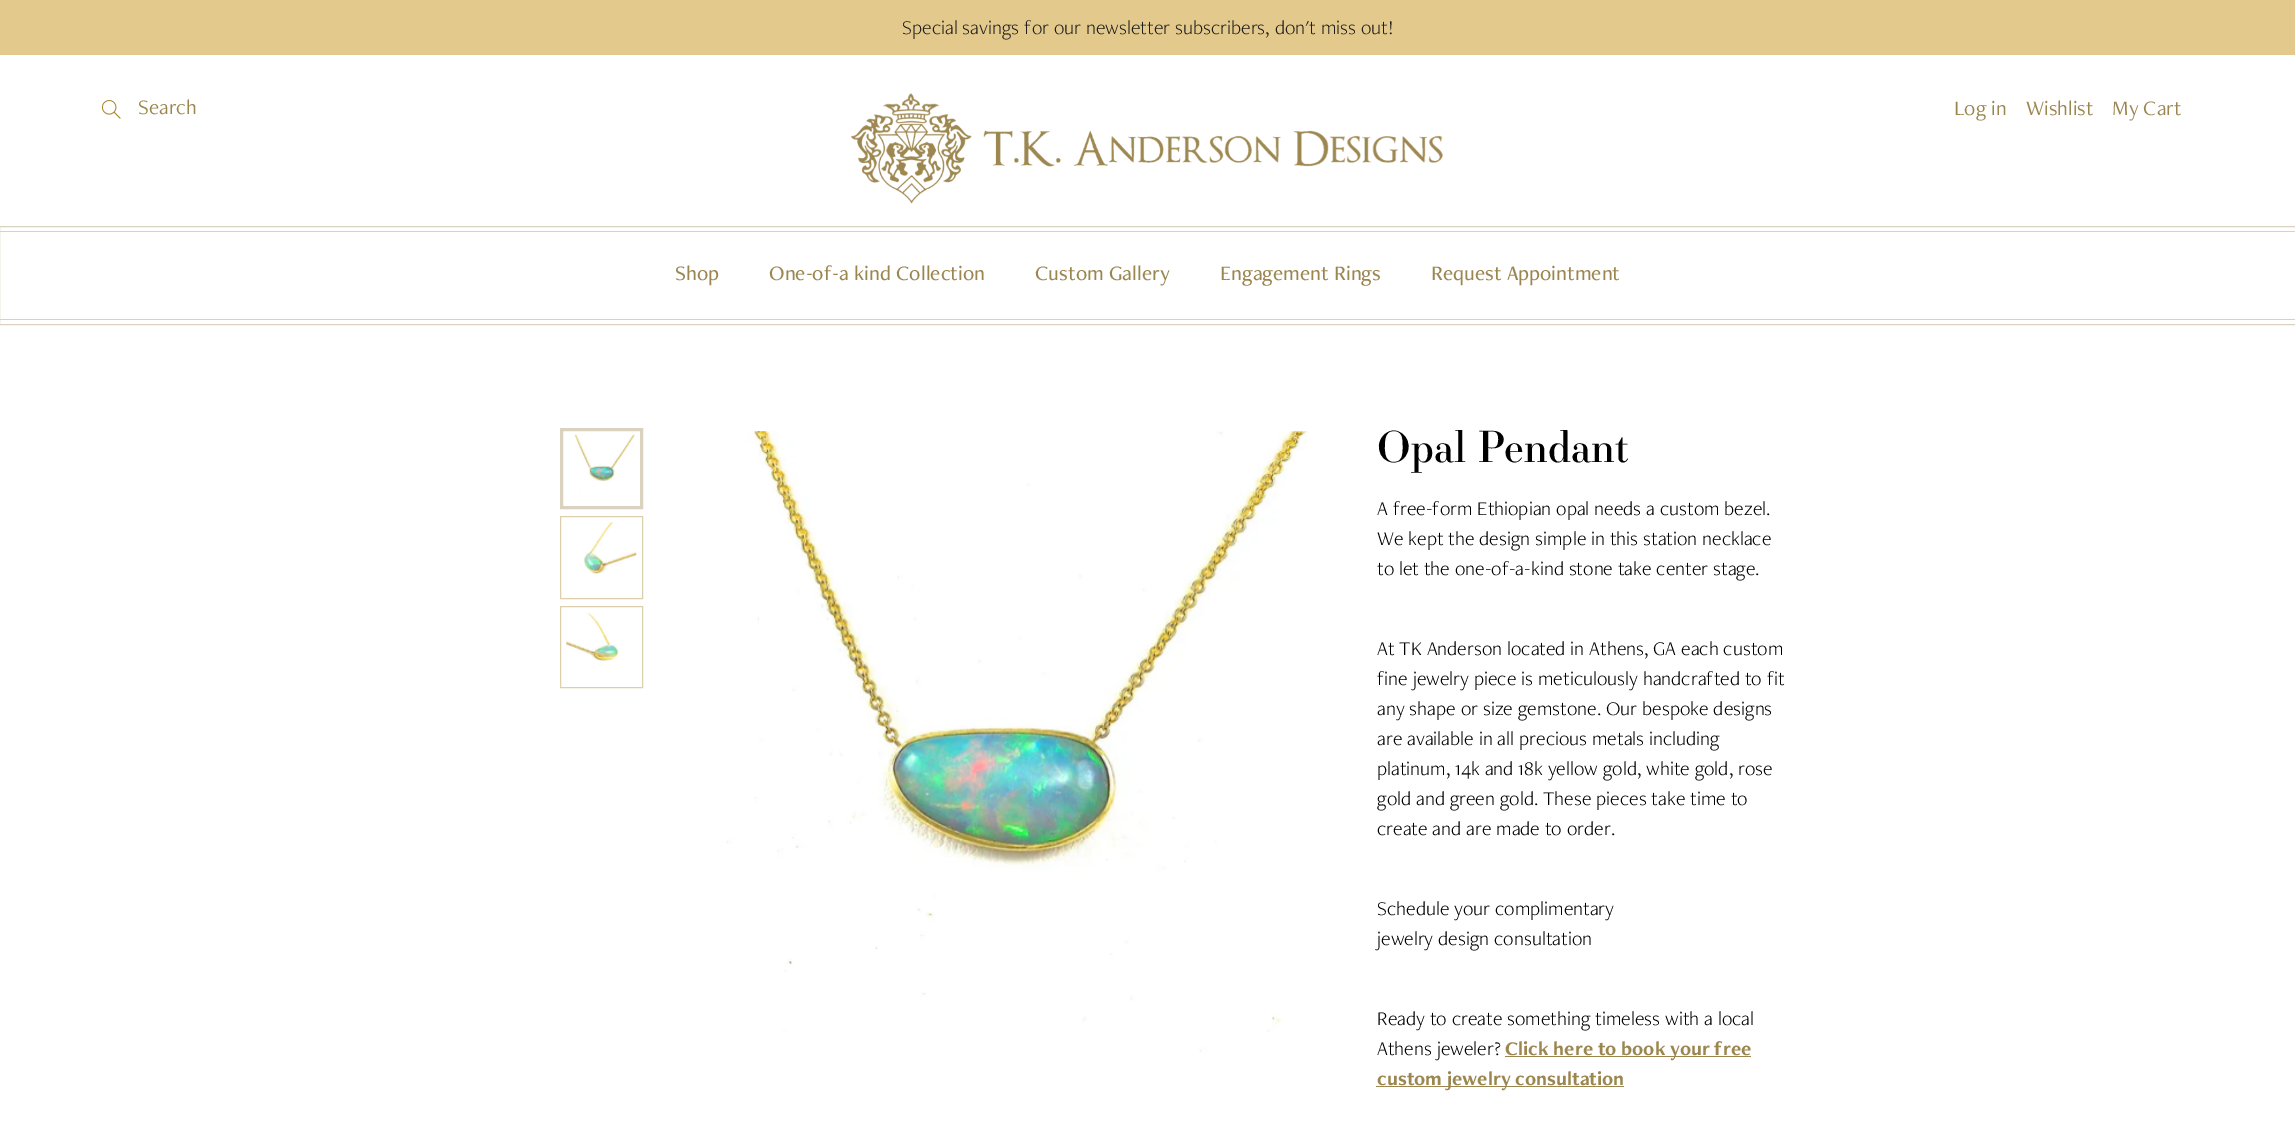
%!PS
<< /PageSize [2295 1145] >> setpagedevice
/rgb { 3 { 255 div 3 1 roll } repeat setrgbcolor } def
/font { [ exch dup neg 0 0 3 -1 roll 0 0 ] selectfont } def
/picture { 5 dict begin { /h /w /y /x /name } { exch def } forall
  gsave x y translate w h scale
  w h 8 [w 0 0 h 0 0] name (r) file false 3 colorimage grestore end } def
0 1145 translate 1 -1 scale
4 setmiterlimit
255 255 255 rgb
0 0 2295 1145 rectfill
227 201 139 rgb
0 0 2295 55 rectfill
(img/1.rgb) 101 100 20 19 picture
(img/2.rgb) 850 93 593 111 picture
218 210 191 rgb
0 231 2295 1 rectfill
0 319 2295 1 rectfill
-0.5 226.5 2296 98 rectstroke
3 setlinewidth
561.5 429.5 80 78 rectstroke
(img/3.rgb) 574 434 61 64 picture
221 207 172 rgb
1 setlinewidth
560.5 516.5 82 82 rectstroke
(img/4.rgb) 584 521 53 53 picture
560.5 606.5 82 81 rectstroke
(img/5.rgb) 566 612 53 50 picture
(img/6.rgb) 726 431 582 621 picture
156 134 80 rgb
1505 1056 246 1 rectfill
1376 1086 248 1 rectfill
/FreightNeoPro-Light 20 font
30 30 30 rgb
902 34 moveto (Special savings for our newsletter subscribers, don't miss out!) show
/FreightNeoPro-Regular 21.25 font
156 134 80 rgb
[
  [(Search) 138 114]
  [(Log in) 1954 115]
  [(Wishlist) 2026 115]
  [(My Cart) 2112 115]
] { aload pop moveto show } forall
/FreightNeoPro-Medium 21.25 font
[
  [(Shop) 675 280]
  [(One-of-a kind Collection) 769 280]
  [(Custom Gallery) 1035 280]
  [(Engagement Rings) 1220 280]
  [(Request Appointment) 1431 280]
] { aload pop moveto show } forall
/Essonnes-Regular 42.5 font
0 0 0 rgb
1377 462 moveto (Opal Pendant) show
/FreightNeoPro-Light 20 font
[
  [(A free-form Ethiopian opal needs a custom bezel.) 1377 515]
  [(We kept the design simple in this station necklace) 1377 545]
  [(to let the one-of-a-kind stone take center stage.) 1377 575]
  [(At TK Anderson located in Athens, GA each custom) 1377 655]
  [(fine jewelry piece is meticulously handcrafted to fit) 1377 685]
  [(any shape or size gemstone. Our bespoke designs) 1377 715]
  [(are available in all precious metals including) 1377 745]
  [(platinum, 14k and 18k yellow gold, white gold, rose) 1377 775]
  [(gold and green gold. These pieces take time to) 1377 805]
  [(create and are made to order.) 1377 835]
  [(Schedule your complimentary) 1377 915]
  [(jewelry design consultation) 1377 945]
  [(Ready to create something timeless with a local) 1377 1025]
  [(Athens jeweler?) 1377 1055]
] { aload pop moveto show } forall
/FreightNeoPro-Bold 20 font
156 134 80 rgb
1505 1055 moveto (Click here to book your free) show
1377 1085 moveto (custom jewelry consultation) show
showpage
